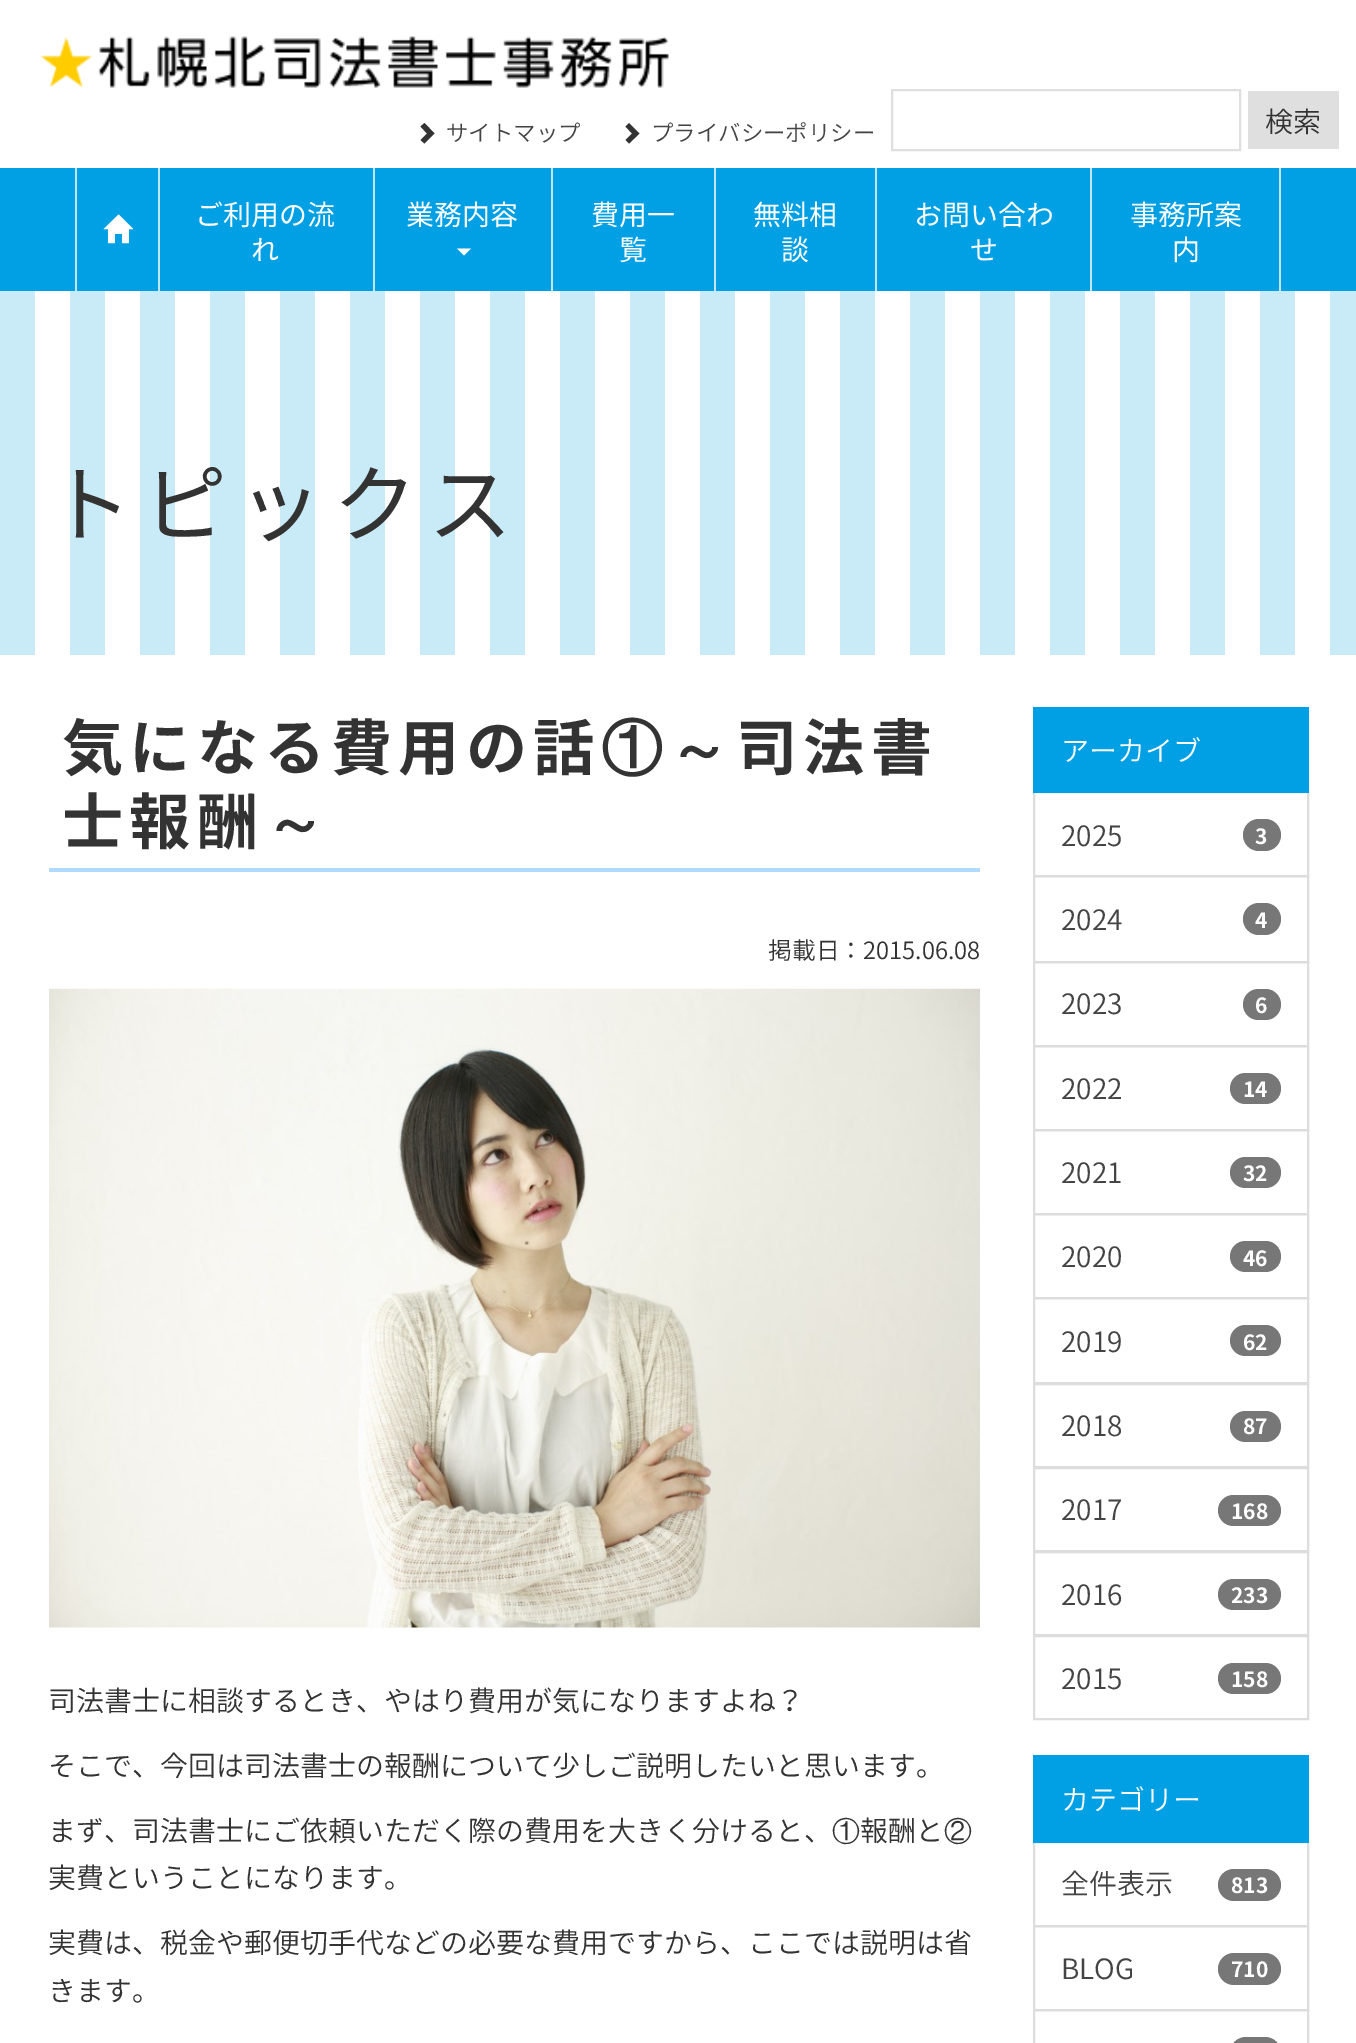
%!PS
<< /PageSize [1356 2043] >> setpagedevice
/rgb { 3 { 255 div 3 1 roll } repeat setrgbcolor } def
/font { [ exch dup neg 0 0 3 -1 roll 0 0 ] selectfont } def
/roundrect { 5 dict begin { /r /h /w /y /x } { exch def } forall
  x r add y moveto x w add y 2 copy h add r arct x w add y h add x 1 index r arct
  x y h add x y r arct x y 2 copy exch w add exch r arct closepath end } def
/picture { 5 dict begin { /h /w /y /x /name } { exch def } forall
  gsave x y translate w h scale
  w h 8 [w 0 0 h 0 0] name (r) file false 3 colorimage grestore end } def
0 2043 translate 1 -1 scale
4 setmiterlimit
255 255 255 rgb
0 0 1356 2043 rectfill
(img/1.rgb) 40 36 629 52 picture
51 51 51 rgb
434.5 133.5 moveto 424.5 143.5 lineto 420.5 140 lineto 427 133.5 lineto 420.5 126.5 lineto 424.5 123 lineto closepath fill
639.5 133.5 moveto 629 143.5 lineto 625.5 140 lineto 632 133.5 lineto 625.5 126.5 lineto 629 123 lineto closepath fill
223 223 223 rgb
2 setlinewidth
892 90 348 60 rectstroke
[
  [1248 91 91 58 223 223 223]
  [0 168 1356 123 1 160 228]
  [158 168 2 123 192 231 248]
  [75 168 2 123 192 231 248]
] { aload pop rgb rectfill } forall
(img/2.rgb) 103 214 31 30 picture
373 168 2 123 rectfill
551 168 2 123 rectfill
255 255 255 rgb
457 248.5 moveto 471 248.5 lineto 464 255.5 lineto closepath fill
[
  [714 168 2 123 192 231 248]
  [875 168 2 123 192 231 248]
  [1090 168 2 123 192 231 248]
  [1279 168 2 123 192 231 248]
] { aload pop rgb rectfill } forall
(img/3.rgb) 0 291 1356 364 picture
176 219 255 rgb
49 868 931 4 rectfill
(img/4.rgb) 49 988 931 640 picture
221 221 221 rgb
1034 792 274 84 rectstroke
1 160 228 rgb
1033 707 276 86 rectfill
119 119 119 rgb
1243 819 38 32 16 roundrect fill
221 221 221 rgb
1034 876 274 86 rectstroke
119 119 119 rgb
1243 903 38 32 16 roundrect fill
221 221 221 rgb
1034 962 274 84 rectstroke
119 119 119 rgb
1243 989 38 31 15.5 roundrect fill
221 221 221 rgb
1034 1046 274 84 rectstroke
119 119 119 rgb
1230 1073 51 31 15.5 roundrect fill
221 221 221 rgb
1034 1130 274 84 rectstroke
119 119 119 rgb
1230 1157 51 31 15.5 roundrect fill
221 221 221 rgb
1034 1214 274 84 rectstroke
119 119 119 rgb
1230 1241 51 31 15.5 roundrect fill
221 221 221 rgb
1034 1298 274 85 rectstroke
119 119 119 rgb
1230 1325 51 31 15.5 roundrect fill
221 221 221 rgb
1034 1384 274 83 rectstroke
119 119 119 rgb
1230 1411 51 31 15.5 roundrect fill
221 221 221 rgb
1034 1468 274 83 rectstroke
119 119 119 rgb
1218 1495 63 31 15.5 roundrect fill
221 221 221 rgb
1034 1552 274 83 rectstroke
119 119 119 rgb
1218 1579 63 31 15.5 roundrect fill
221 221 221 rgb
1034 1636 274 83 rectstroke
119 119 119 rgb
1218 1663 63 31 15.5 roundrect fill
221 221 221 rgb
1034 1842 274 84 rectstroke
1 160 228 rgb
1033 1755 276 88 rectfill
119 119 119 rgb
1218 1869 63 32 16 roundrect fill
221 221 221 rgb
1034 1926 274 84 rectstroke
119 119 119 rgb
1218 1953 63 32 16 roundrect fill
221 221 221 rgb
1034 2010 274 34 rectstroke
119 119 119 rgb
1230 2037 51 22 16 roundrect fill
/NotoSansJP-Light 22.4 font
68 68 68 rgb
446 141 moveto (サイトマップ) show
651 141 moveto (プライバシーポリシー) show
/NotoSansJP-Light 28 font
51 51 51 rgb
1265 132 moveto (検索) show
/NotoSansJP-Regular 28 font
255 255 255 rgb
[
  [(ご利用の流) 195 225]
  [(れ) 251 260]
  [(業務内容) 406 225]
  [(費用一) 591 225]
  [(覧) 619 260]
  [(無料相) 753 225]
  [(談) 781 260]
  [(お問い合わ) 914 225]
  [(せ) 970 260]
  [(事務所案) 1130 225]
  [(内) 1172 260]
] { aload pop moveto show } forall
/NotoSansJP-Regular 84 font
51 51 51 rgb
48 535 moveto 11 0 (トピックス) ashow
/NotoSansJP-Bold 61.25 font
62 770 moveto 6 0 (気になる費用の話) ashow
/WenQuanYiZenHei-Bold 61.25 font
601 770 moveto 6 0 (①～) ashow
/NotoSansJP-Bold 61.25 font
736 770 moveto 6 0 (司法書) ashow
62 844 moveto 6 0 (士報酬) ashow
/WenQuanYiZenHei-Bold 61.25 font
264 844 moveto 6 0 (～) ashow
/NotoSansJP-Light 23.75 font
768 959 moveto (掲載日：2015.06.08) show
/NotoSansJP-Light 28 font
[
  [(司法書士に相談するとき、やはり費用が気になりますよね？) 48 1711]
  [(そこで、今回は司法書士の報酬について少しご説明したいと思います。) 48 1776]
  [(まず、司法書士にご依頼いただく際の費用を大きく分けると、) 48 1841]
] { aload pop moveto show } forall
/WenQuanYiZenHei-Medium 28 font
832 1841 moveto (①) show
/NotoSansJP-Light 28 font
860 1841 moveto (報酬と) show
/WenQuanYiZenHei-Medium 28 font
944 1841 moveto (②) show
/NotoSansJP-Light 28 font
[
  [(実費ということになります。) 48 1888]
  [(実費は、税金や郵便切手代などの必要な費用ですから、ここでは説明は省) 48 1953]
  [(きます。) 48 2001]
] { aload pop moveto show } forall
255 255 255 rgb
1061 761 moveto (アーカイブ) show
68 68 68 rgb
1061 846 moveto (2025) show
/NotoSansJP-Bold 21 font
255 255 255 rgb
1255 844 moveto (3) show
/NotoSansJP-Light 28 font
68 68 68 rgb
1061 930 moveto (2024) show
/NotoSansJP-Bold 21 font
255 255 255 rgb
1255 928 moveto (4) show
/NotoSansJP-Light 28 font
68 68 68 rgb
1061 1014 moveto (2023) show
/NotoSansJP-Bold 21 font
255 255 255 rgb
1255 1013 moveto (6) show
/NotoSansJP-Light 28 font
68 68 68 rgb
1061 1099 moveto (2022) show
/NotoSansJP-Bold 21 font
255 255 255 rgb
1243 1097 moveto (14) show
/NotoSansJP-Light 28 font
68 68 68 rgb
1061 1183 moveto (2021) show
/NotoSansJP-Bold 21 font
255 255 255 rgb
1243 1181 moveto (32) show
/NotoSansJP-Light 28 font
68 68 68 rgb
1061 1267 moveto (2020) show
/NotoSansJP-Bold 21 font
255 255 255 rgb
1243 1266 moveto (46) show
/NotoSansJP-Light 28 font
68 68 68 rgb
1061 1352 moveto (2019) show
/NotoSansJP-Bold 21 font
255 255 255 rgb
1243 1350 moveto (62) show
/NotoSansJP-Light 28 font
68 68 68 rgb
1061 1436 moveto (2018) show
/NotoSansJP-Bold 21 font
255 255 255 rgb
1243 1434 moveto (87) show
/NotoSansJP-Light 28 font
68 68 68 rgb
1061 1520 moveto (2017) show
/NotoSansJP-Bold 21 font
255 255 255 rgb
1231 1519 moveto (168) show
/NotoSansJP-Light 28 font
68 68 68 rgb
1061 1605 moveto (2016) show
/NotoSansJP-Bold 21 font
255 255 255 rgb
1231 1603 moveto (233) show
/NotoSansJP-Light 28 font
68 68 68 rgb
1061 1689 moveto (2015) show
/NotoSansJP-Bold 21 font
255 255 255 rgb
1231 1687 moveto (158) show
/NotoSansJP-Light 28 font
1061 1810 moveto (カテゴリー) show
68 68 68 rgb
1061 1894 moveto (全件表示) show
/NotoSansJP-Bold 21 font
255 255 255 rgb
1231 1893 moveto (813) show
/NotoSansJP-Light 28 font
68 68 68 rgb
1061 1979 moveto (BLOG) show
/NotoSansJP-Bold 21 font
255 255 255 rgb
1231 1977 moveto (710) show
showpage
